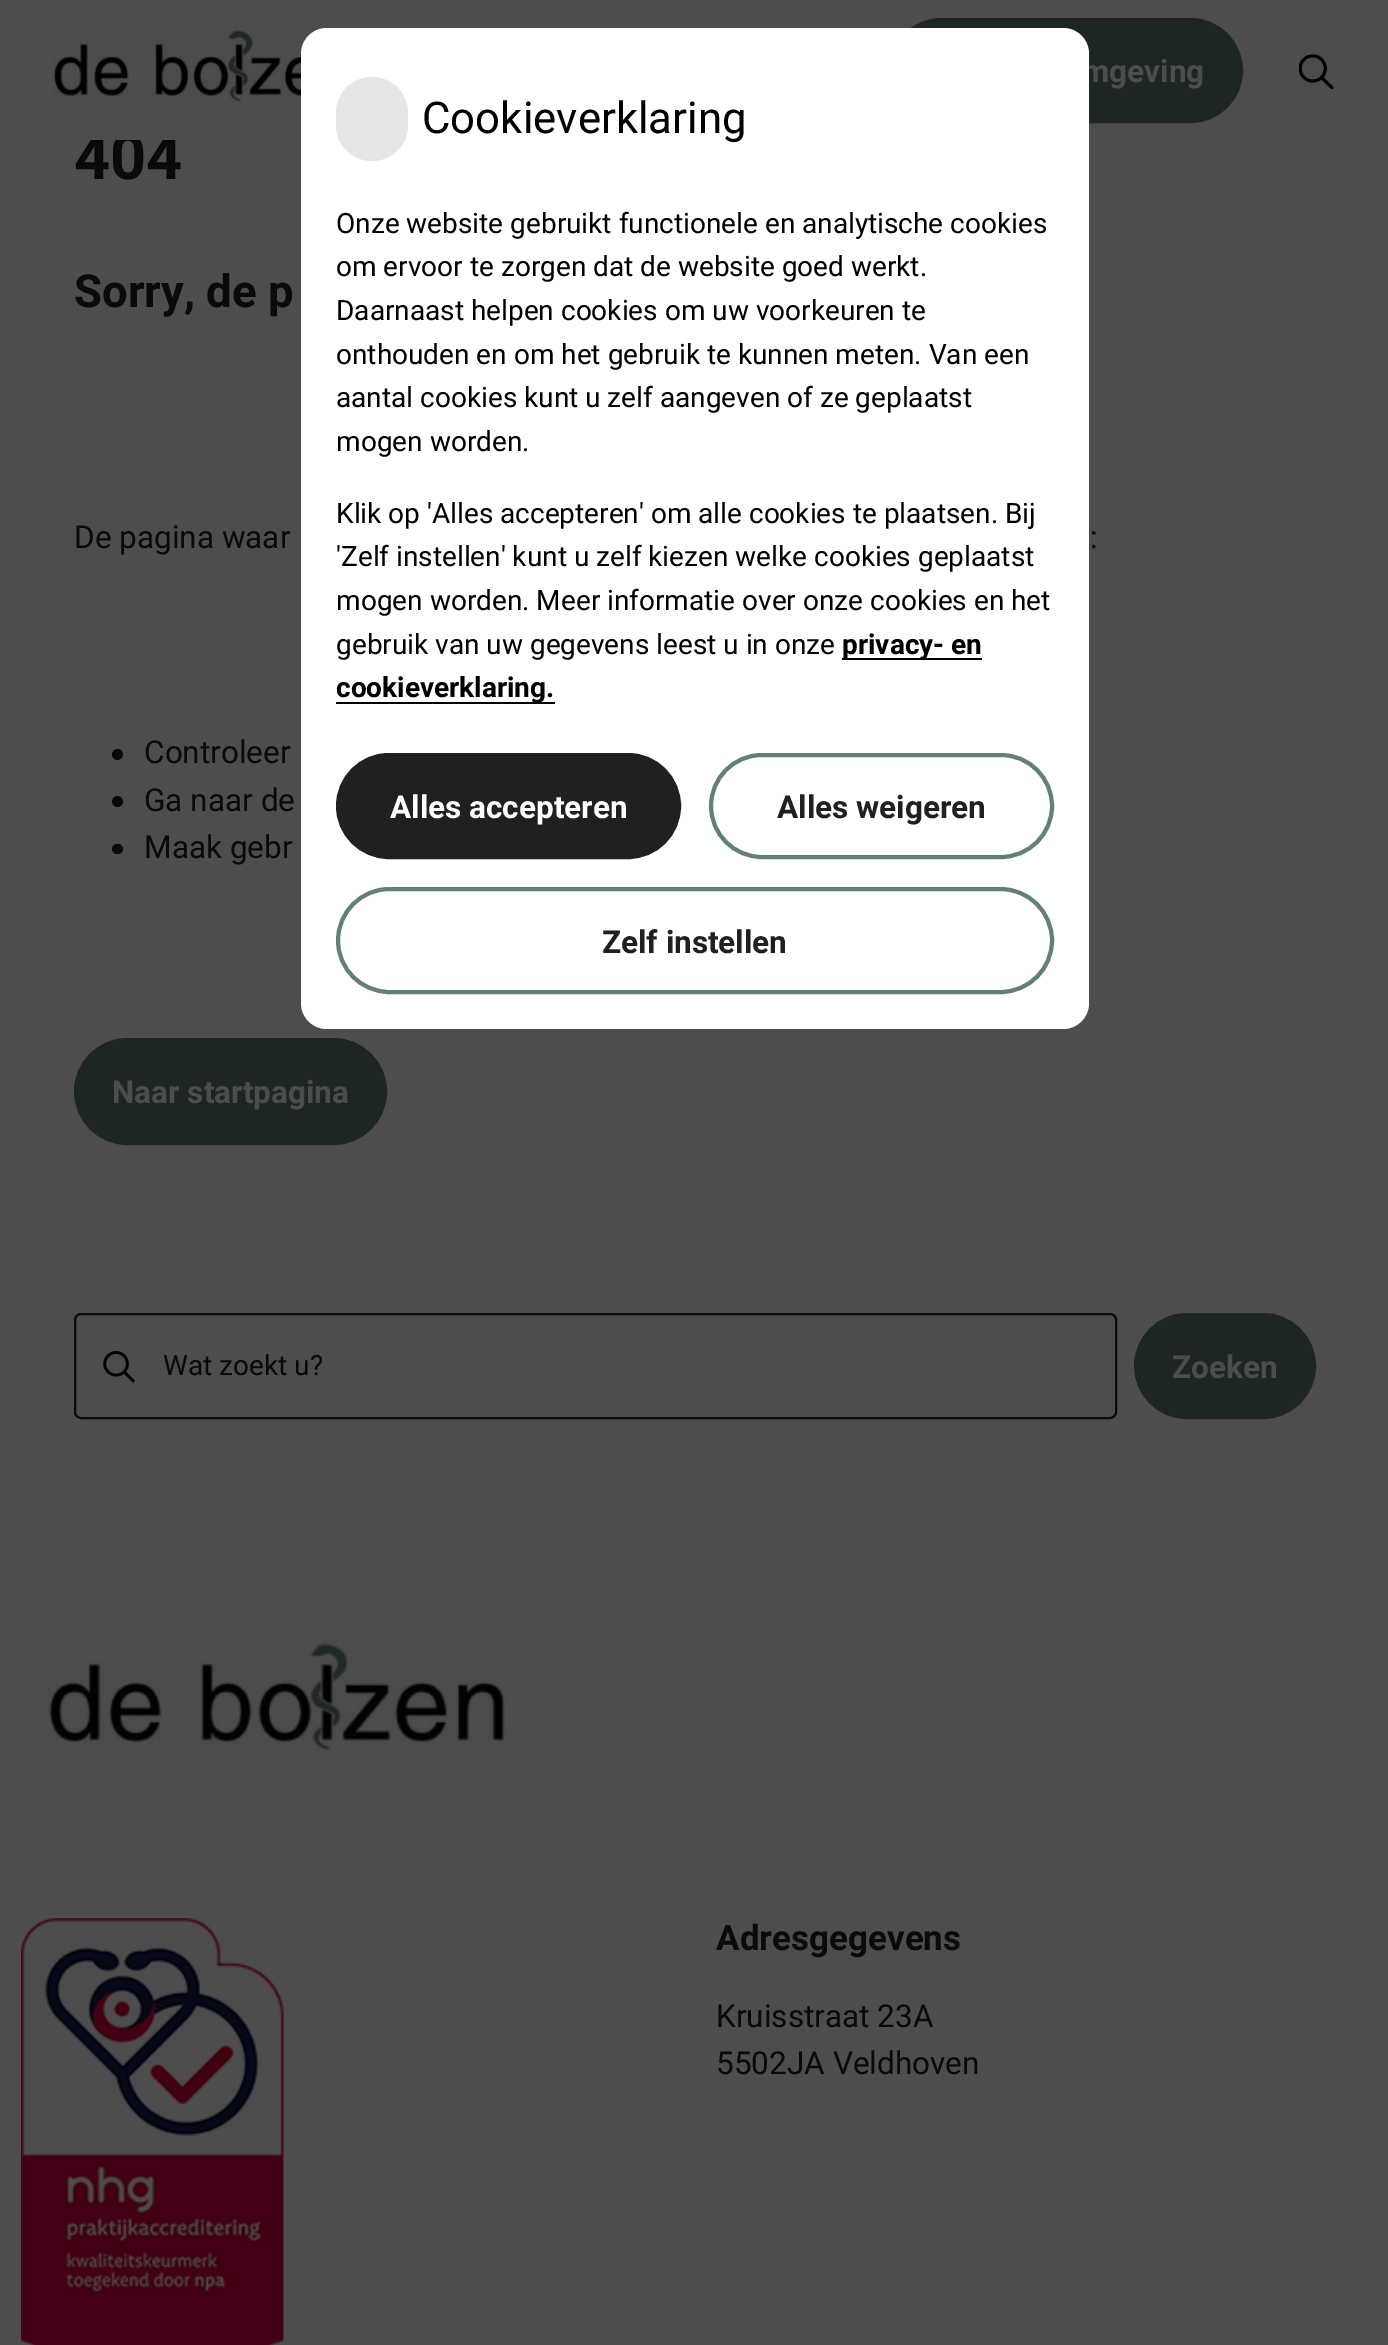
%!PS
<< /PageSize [1388 2345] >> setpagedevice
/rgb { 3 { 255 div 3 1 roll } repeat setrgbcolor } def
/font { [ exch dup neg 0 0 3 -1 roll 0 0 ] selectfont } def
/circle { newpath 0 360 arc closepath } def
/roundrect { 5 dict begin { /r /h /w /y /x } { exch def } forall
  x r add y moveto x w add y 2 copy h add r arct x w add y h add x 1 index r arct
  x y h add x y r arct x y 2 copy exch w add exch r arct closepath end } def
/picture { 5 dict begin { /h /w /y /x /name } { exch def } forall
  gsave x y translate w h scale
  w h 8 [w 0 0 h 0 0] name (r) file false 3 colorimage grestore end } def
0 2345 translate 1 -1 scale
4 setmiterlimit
77 77 77 rgb
0 0 1388 2345 rectfill
(img/1.rgb) 53 21 308 84 picture
30 38 35 rgb
891 20 350 101 50.5 roundrect gsave fill grestore
4 setlinewidth
stroke
(img/2.rgb) 1299 54 35 35 picture
10 10 9 rgb
117.5 754.5 5.5 circle fill
117.5 801.5 5.5 circle fill
112 844 11 10 5 roundrect fill
30 38 35 rgb
76 1040 309 103 51.5 roundrect gsave fill grestore
stroke
(img/3.rgb) 103 1351 32 32 picture
10 10 9 rgb
2 setlinewidth
75 1314 1041 104 6 roundrect stroke
30 38 35 rgb
1136 1315 178 102 51 roundrect gsave fill grestore
4 setlinewidth
stroke
(img/4.rgb) 48 1629 463 127 picture
(img/5.rgb) 21 1918 263 427 picture
/Roboto-Bold 31.5 font
77 77 77 rgb
1082 82 moveto (mgeving) show
255 255 255 rgb
301 28 788 1001 26 roundrect fill
230 230 230 rgb
336 77 72 84 36 roundrect fill
/Roboto-Regular 43.75 font
0 0 0 rgb
422 133 moveto (Cookieverklaring) show
/Roboto-Regular 28 font
[
  [(Onze website gebruikt functionele en analytische cookies) 336 233]
  [(om ervoor te zorgen dat de website goed werkt.) 336 276]
  [(Daarnaast helpen cookies om uw voorkeuren te) 336 320]
  [(onthouden en om het gebruik te kunnen meten. Van een) 336 364]
  [(aantal cookies kunt u zelf aangeven of ze geplaatst) 336 407]
  [(mogen worden.) 336 451]
  [(Klik op 'Alles accepteren' om alle cookies te plaatsen. Bij) 336 523]
  [('Zelf instellen' kunt u zelf kiezen welke cookies geplaatst) 336 566]
  [(mogen worden. Meer informatie over onze cookies en het) 336 610]
  [(gebruik van uw gegevens leest u in onze) 336 654]
] { aload pop moveto show } forall
842 658 140 2 rectfill
/Roboto-Bold 28 font
842 654 moveto (privacy- en) show
336 702 219 2 rectfill
336 697 moveto (cookieverklaring.) show
32 32 31 rgb
338 755 341 102 51 roundrect gsave fill grestore
stroke
/Roboto-Bold 31.5 font
255 255 255 rgb
390 818 moveto (Alles accepteren) show
100 127 118 rgb
711 755 341 102 51 roundrect stroke
32 32 31 rgb
777 818 moveto (Alles weigeren) show
100 127 118 rgb
338 889 714 103 51.5 roundrect stroke
32 32 31 rgb
602 953 moveto (Zelf instellen) show
/Roboto-Bold 63 font
10 10 9 rgb
74 179 moveto (404) show
77 77 77 rgb
90 133 86 7 rectfill
/Roboto-Bold 45.5 font
10 10 9 rgb
74 307 moveto (Sorry, de p) show
/Roboto-Regular 31.5 font
[
  [(De pagina waar) 74 548]
  [(:) 1090 548]
  [(Controleer) 144 763]
  [(Ga naar de) 144 811]
  [(Maak gebr) 144 858]
] { aload pop moveto show } forall
/Roboto-Bold 31.5 font
77 77 77 rgb
112 1103 moveto (Naar startpagina) show
/Roboto-Regular 28 font
10 10 9 rgb
163 1375 moveto (Wat zoekt u?) show
/Roboto-Bold 31.5 font
77 77 77 rgb
1172 1378 moveto (Zoeken) show
/Roboto-Bold 35 font
10 10 9 rgb
716 1950 moveto (Adresgegevens) show
/Roboto-Regular 31.5 font
716 2027 moveto (Kruisstraat 23A) show
716 2074 moveto (5502JA Veldhoven) show
showpage
